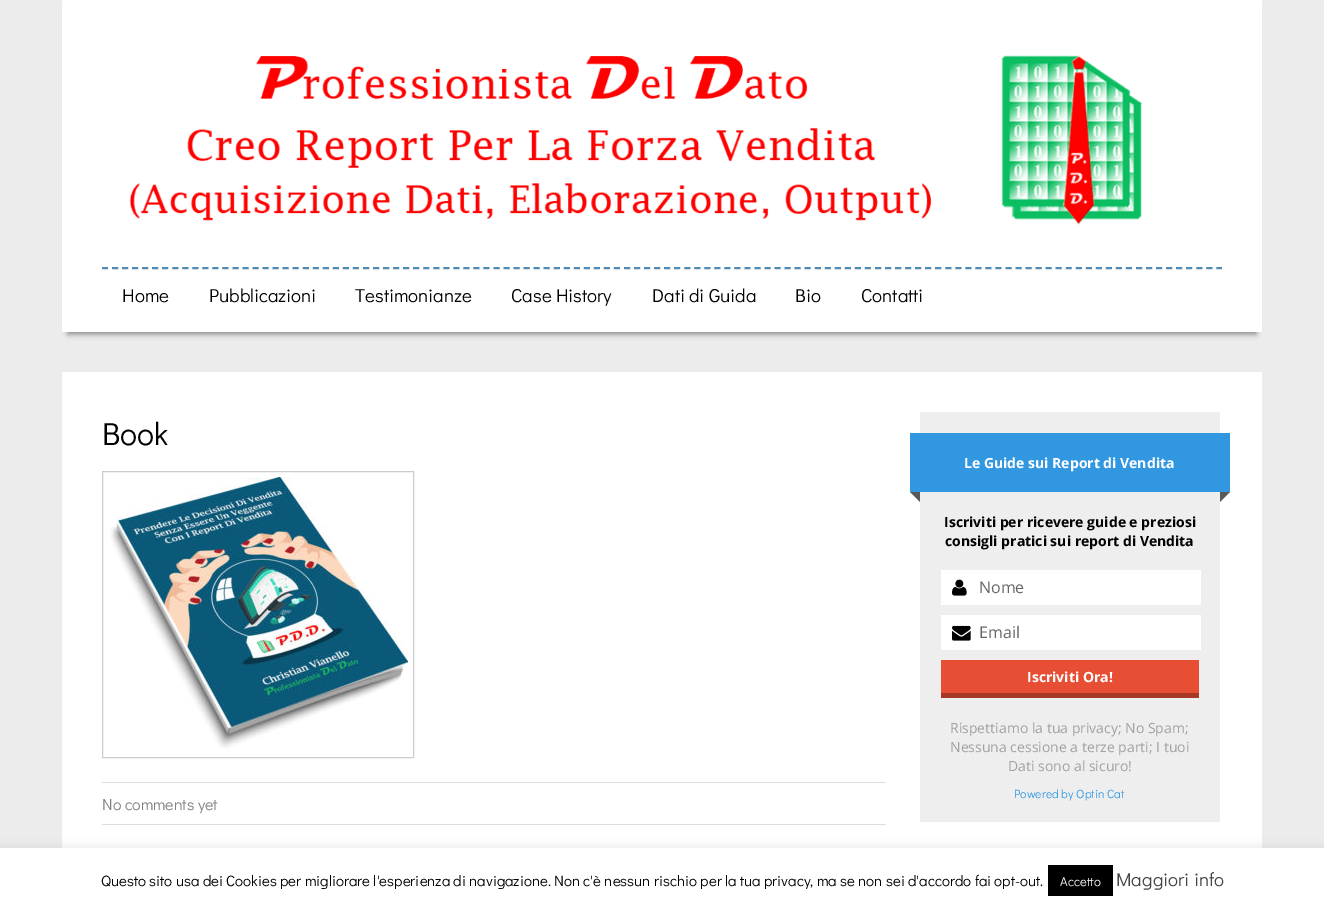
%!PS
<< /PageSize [1324 908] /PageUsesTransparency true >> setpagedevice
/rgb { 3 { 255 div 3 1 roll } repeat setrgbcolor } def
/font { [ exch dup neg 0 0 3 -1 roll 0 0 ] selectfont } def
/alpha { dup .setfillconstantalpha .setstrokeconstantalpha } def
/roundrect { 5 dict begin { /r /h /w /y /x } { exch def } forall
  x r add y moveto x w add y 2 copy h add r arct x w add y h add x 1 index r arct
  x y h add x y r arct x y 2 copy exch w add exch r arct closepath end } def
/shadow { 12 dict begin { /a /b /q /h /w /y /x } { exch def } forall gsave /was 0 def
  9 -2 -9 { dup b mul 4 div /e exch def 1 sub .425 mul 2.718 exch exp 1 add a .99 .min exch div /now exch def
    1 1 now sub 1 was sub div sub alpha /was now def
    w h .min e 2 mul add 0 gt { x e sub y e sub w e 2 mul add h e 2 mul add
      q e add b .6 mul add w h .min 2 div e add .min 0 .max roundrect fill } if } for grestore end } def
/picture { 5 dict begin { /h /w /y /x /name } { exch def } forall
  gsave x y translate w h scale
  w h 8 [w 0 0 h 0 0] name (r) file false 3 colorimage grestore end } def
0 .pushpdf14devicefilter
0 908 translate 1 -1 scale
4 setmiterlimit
236 236 236 rgb
0 0 1324 908 rectfill
128 128 128 rgb
68 14 1188 320 0 3 1 shadow
255 255 255 rgb
62 0 1200 332 rectfill
(img/1.rgb) 129 55 1013 171 picture
81 139 179 rgb
2 setlinewidth
[6 4.04] 0 setdash
102 268 moveto 1222 268 lineto stroke
255 255 255 rgb
62 372 1200 476 rectfill
204 204 204 rgb
1 setlinewidth
[] 0 setdash
102.5 471.5 311 286 rectstroke
(img/2.rgb) 110 477 298 272 picture
[
  [102 782 784 1 221 221 221]
  [102 824 784 1 221 221 221]
  [920 412 300 410 238 238 238]
  [910 433 320 59 49 151 225]
] { aload pop rgb rectfill } forall
89 89 89 rgb
910 492 moveto 920 492 lineto 920 502 lineto closepath fill
1230 492 moveto 1220 492 lineto 1220 502 lineto closepath fill
255 255 255 rgb
941 570 260 35 rectfill
(img/3.rgb) 952 579 15 17 picture
941 615 260 35 rectfill
(img/4.rgb) 952 625 19 16 picture
168 57 38 rgb
941 693 258 5 rectfill
232 78 52 rgb
941 660 258 33 rectfill
172 171 171 rgb
0 847 1324 60 0 5 0.3 shadow
255 255 255 rgb
0 848 1324 60 rectfill
0 0 0 rgb
1048 865 65 31 rectfill
/DidactGothic-Regular 18.75 font
[
  [(Home) 122 302]
  [(Pubblicazioni) 209 302]
  [(Testimonianze) 355 302]
  [(Case History) 511 302]
  [(Dati di Guida) 652 302]
  [(Bio) 795 302]
  [(Contatti) 861 302]
] { aload pop moveto show } forall
/DidactGothic-Regular 32 font
102 445 moveto (Book) show
/DidactGothic-Regular 16 font
128 128 128 rgb
102 810 moveto (No comments yet) show
/OpenSans-Bold 14 font
255 255 255 rgb
964 468 moveto (Le Guide sui Report di Vendita) show
0 0 0 rgb
944 527 moveto (Iscriviti per ricevere guide e preziosi) show
945 546 moveto (consigli pratici sui report di Vendita) show
/OpenSans-Regular 16 font
102 102 102 rgb
979 593 moveto (Nome) show
979 638 moveto (Email) show
/OpenSans-Bold 14 font
255 255 255 rgb
1027 682 moveto (Iscriviti Ora!) show
/OpenSans-Regular 14 font
161 161 161 rgb
[
  [(Rispettiamo la tua privacy; No Spam;) 950 733]
  [(Nessuna cessione a terze parti; I tuoi) 950 752]
  [(Dati sono al sicuro!) 1008 771]
] { aload pop moveto show } forall
/DidactGothic-Regular 12 font
49 151 225 rgb
1014 798 moveto (Powered by Optin Cat) show
/DidactGothic-Regular 15 font
0 0 0 rgb
101 886 moveto (Questo sito usa dei Cookies per migliorare l'esperienza di navigazione. Non c'è nessun rischio per la tua privacy, ma se non sei d'accordo fai opt-out.) show
/DidactGothic-Regular 13 font
255 255 255 rgb
1060 886 moveto (Accetto) show
/DidactGothic-Regular 18.75 font
68 68 68 rgb
1116 886 moveto (Maggiori info) show
.poppdf14devicefilter showpage
